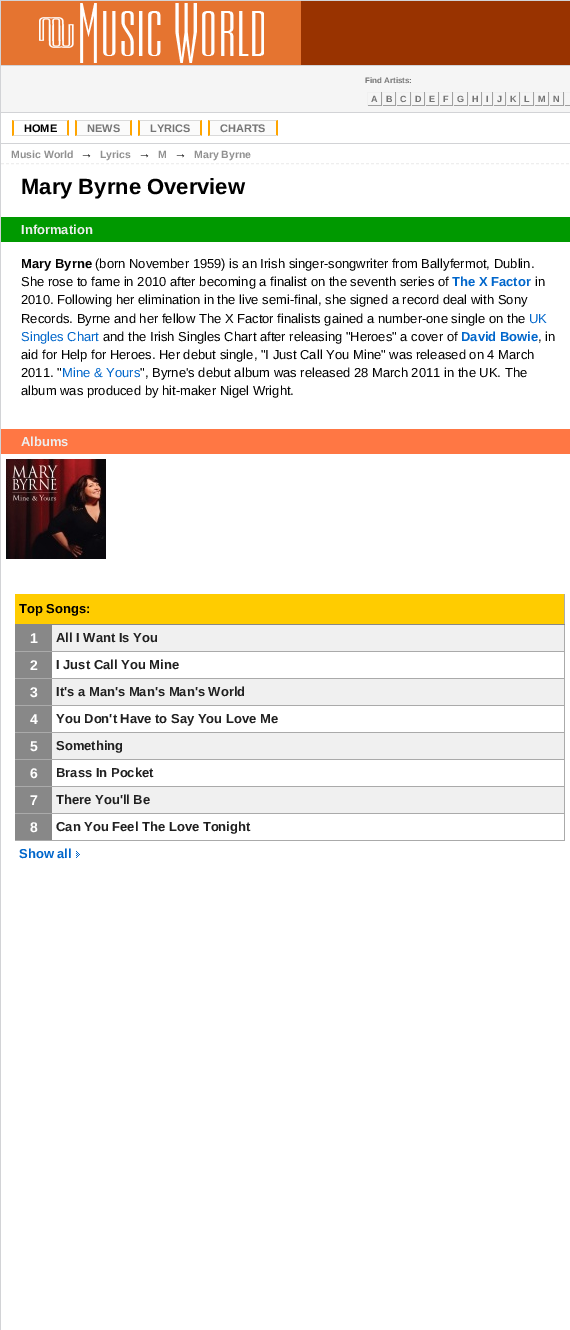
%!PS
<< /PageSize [570 1330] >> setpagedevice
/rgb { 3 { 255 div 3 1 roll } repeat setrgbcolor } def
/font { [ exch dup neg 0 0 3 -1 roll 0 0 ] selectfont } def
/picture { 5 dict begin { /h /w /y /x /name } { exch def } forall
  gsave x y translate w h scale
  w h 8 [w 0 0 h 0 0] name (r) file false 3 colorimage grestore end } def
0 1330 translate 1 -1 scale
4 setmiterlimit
255 255 255 rgb
0 0 570 1330 rectfill
210 211 214 rgb
0.5 0.5 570 65 rectstroke
229 116 48 rgb
1 1 300 64 rectfill
(img/1.rgb) 39 3 225 60 picture
[
  [301 1 269 64 153 51 0]
  [0 66 1 47 210 211 214]
  [1 66 569 46 245 245 245]
  [1 112 569 1 210 211 214]
  [367 92 203 1 240 240 240]
  [381 92 1 14 160 160 160]
  [367 105 15 1 160 160 160]
  [367 92 1 14 240 240 240]
  [395 92 1 14 160 160 160]
  [382 105 14 1 160 160 160]
  [382 92 1 14 240 240 240]
  [410 92 1 14 160 160 160]
  [396 105 15 1 160 160 160]
  [396 92 1 14 240 240 240]
  [424 92 1 14 160 160 160]
  [411 105 14 1 160 160 160]
  [411 92 1 14 240 240 240]
  [438 92 1 14 160 160 160]
  [425 105 14 1 160 160 160]
  [425 92 1 14 240 240 240]
  [452 92 1 14 160 160 160]
  [439 105 14 1 160 160 160]
  [439 92 1 14 240 240 240]
  [467 92 1 14 160 160 160]
  [453 105 15 1 160 160 160]
  [453 92 1 14 240 240 240]
  [481 92 1 14 160 160 160]
  [468 105 14 1 160 160 160]
  [468 92 1 14 240 240 240]
  [492 92 1 14 160 160 160]
  [482 105 11 1 160 160 160]
  [482 92 1 14 240 240 240]
  [505 92 1 14 160 160 160]
  [493 105 13 1 160 160 160]
  [493 92 1 14 240 240 240]
  [519 92 1 14 160 160 160]
  [506 105 14 1 160 160 160]
  [506 92 1 14 240 240 240]
  [533 92 1 14 160 160 160]
  [520 105 14 1 160 160 160]
  [520 92 1 14 240 240 240]
  [548 92 1 14 160 160 160]
  [534 105 15 1 160 160 160]
  [534 92 1 14 240 240 240]
  [563 92 1 14 160 160 160]
  [549 105 21 1 160 160 160]
  [549 92 1 14 240 240 240]
  [564 92 1 14 240 240 240]
  [0 143 570 1 210 211 214]
  [0 113 1 1217 210 211 214]
] { aload pop rgb rectfill } forall
218 218 218 rgb
12 120 moveto 69 120 lineto 67 121 lineto 14 121 lineto closepath fill
255 165 0 rgb
69 120 moveto 69 136 lineto 67 135 lineto 67 121 lineto closepath fill
218 218 218 rgb
69 136 moveto 12 136 lineto 14 135 lineto 67 135 lineto closepath fill
255 165 0 rgb
12 136 moveto 12 120 lineto 14 121 lineto 14 135 lineto closepath fill
251 251 251 rgb
77 121 53 14 rectfill
218 218 218 rgb
75 120 moveto 132 120 lineto 130 121 lineto 77 121 lineto closepath fill
255 165 0 rgb
132 120 moveto 132 136 lineto 130 135 lineto 130 121 lineto closepath fill
218 218 218 rgb
132 136 moveto 75 136 lineto 77 135 lineto 130 135 lineto closepath fill
255 165 0 rgb
75 136 moveto 75 120 lineto 77 121 lineto 77 135 lineto closepath fill
251 251 251 rgb
140 121 60 14 rectfill
218 218 218 rgb
138 120 moveto 202 120 lineto 200 121 lineto 140 121 lineto closepath fill
255 165 0 rgb
202 120 moveto 202 136 lineto 200 135 lineto 200 121 lineto closepath fill
218 218 218 rgb
202 136 moveto 138 136 lineto 140 135 lineto 200 135 lineto closepath fill
255 165 0 rgb
138 136 moveto 138 120 lineto 140 121 lineto 140 135 lineto closepath fill
251 251 251 rgb
210 121 66 14 rectfill
218 218 218 rgb
208 120 moveto 278 120 lineto 276 121 lineto 210 121 lineto closepath fill
255 165 0 rgb
278 120 moveto 278 136 lineto 276 135 lineto 276 121 lineto closepath fill
218 218 218 rgb
278 136 moveto 208 136 lineto 210 135 lineto 276 135 lineto closepath fill
255 165 0 rgb
208 136 moveto 208 120 lineto 210 121 lineto 210 135 lineto closepath fill
238 238 238 rgb
[3 2] 0 setdash
1 163.5 moveto 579 163.5 lineto stroke
0 153 0 rgb
1 217 569 25 rectfill
255 119 68 rgb
1 429 569 25 rectfill
(img/2.rgb) 6 459 100 100 picture
[
  [15 594 549 30 255 204 0]
  [564 594 1 247 170 170 170]
  [15 624 550 1 136 136 136]
  [15 625 37 26 136 136 136]
  [15 651 550 1 170 170 170]
  [52 625 512 26 240 240 240]
  [15 652 37 26 136 136 136]
  [15 678 550 1 170 170 170]
  [15 679 37 26 136 136 136]
  [15 705 550 1 170 170 170]
  [52 679 512 26 240 240 240]
  [15 706 37 26 136 136 136]
  [15 732 550 1 170 170 170]
  [15 733 37 26 136 136 136]
  [15 759 550 1 170 170 170]
  [52 733 512 26 240 240 240]
  [15 760 37 26 136 136 136]
  [15 786 550 1 170 170 170]
  [15 787 37 26 136 136 136]
  [15 813 550 1 170 170 170]
  [52 787 512 26 240 240 240]
  [15 814 37 26 136 136 136]
  [15 840 550 1 170 170 170]
] { aload pop rgb rectfill } forall
(img/3.rgb) 76 851 4 7 picture
/LiberationSans-Bold 8 font
117 117 117 rgb
365 83 moveto (Find Artists:) show
/LiberationSans-Bold 9 font
[
  [(A) 371 102]
  [(B) 386 102]
  [(C) 400 102]
  [(D) 415 102]
  [(E) 429 102]
  [(F) 443 102]
  [(G) 457 102]
  [(H) 472 102]
  [(I) 486 102]
  [(J) 497 102]
  [(K) 510 102]
  [(L) 524 102]
  [(M) 538 102]
  [(N) 553 102]
] { aload pop moveto show } forall
/LiberationSans-Bold 11 font
0 0 0 rgb
24 132 moveto (HOME) show
117 117 117 rgb
[
  [(NEWS) 87 132]
  [(LYRICS) 150 132]
  [(CHARTS) 220 132]
] { aload pop moveto show } forall
/LiberationSans-Bold 10.5 font
144 144 144 rgb
11 158 moveto (Music World) show
/LiberationSans-Regular 13 font
0 0 0 rgb
80 158 moveto (→) show
/LiberationSans-Bold 10.5 font
144 144 144 rgb
100 158 moveto (Lyrics) show
/LiberationSans-Regular 13 font
0 0 0 rgb
138 158 moveto (→) show
/LiberationSans-Bold 10.5 font
144 144 144 rgb
158 158 moveto (M) show
/LiberationSans-Regular 13 font
0 0 0 rgb
174 158 moveto (→) show
/LiberationSans-Bold 10.5 font
144 144 144 rgb
194 158 moveto (Mary Byrne) show
/LiberationSans-Bold 22 font
0 0 0 rgb
21 194 moveto (Mary Byrne Overview) show
/LiberationSans-Bold 13 font
238 238 238 rgb
21 234 moveto (Information) show
0 0 0 rgb
21 268 moveto (Mary Byrne) show
/LiberationSans-Regular 13 font
95 268 moveto (\(born November 1959\) is an Irish singer-songwriter from Ballyfermot, Dublin.) show
21 286 moveto (She rose to fame in 2010 after becoming a finalist on the seventh series of) show
/LiberationSans-Bold 13 font
0 102 203 rgb
452 286 moveto (The X Factor) show
/LiberationSans-Regular 13 font
0 0 0 rgb
[
  [(in) 535 286]
  [(2010. Following her elimination in the live semi-final, she signed a record deal with Sony) 21 304]
  [(Records. Byrne and her fellow The X Factor finalists gained a number-one single on the) 21 323]
] { aload pop moveto show } forall
0 102 203 rgb
529 323 moveto (UK) show
21 341 moveto (Singles Chart) show
0 0 0 rgb
103 341 moveto (and the Irish Singles Chart after releasing "Heroes" a cover of) show
/LiberationSans-Bold 13 font
0 102 203 rgb
461 341 moveto (David Bowie) show
/LiberationSans-Regular 13 font
0 0 0 rgb
[
  [(, in) 538 341]
  [(aid for Help for Heroes. Her debut single, "I Just Call You Mine" was released on 4 March) 21 359]
  [(2011. ") 21 377]
] { aload pop moveto show } forall
0 102 203 rgb
62 377 moveto (Mine & Yours) show
0 0 0 rgb
140 377 moveto (", Byrne's debut album was released 28 March 2011 in the UK. The) show
21 395 moveto (album was produced by hit-maker Nigel Wright.) show
/LiberationSans-Bold 13 font
238 238 238 rgb
21 446 moveto (Albums) show
0 0 0 rgb
19 613 moveto (Top Songs:) show
/LiberationSans-Bold 14 font
255 255 255 rgb
30 643 moveto (1) show
/LiberationSans-Bold 13 font
32 32 32 rgb
56 642 moveto (All I Want Is You) show
/LiberationSans-Bold 14 font
255 255 255 rgb
30 670 moveto (2) show
/LiberationSans-Bold 13 font
32 32 32 rgb
56 669 moveto (I Just Call You Mine) show
/LiberationSans-Bold 14 font
255 255 255 rgb
30 697 moveto (3) show
/LiberationSans-Bold 13 font
32 32 32 rgb
56 696 moveto (It's a Man's Man's Man's World) show
/LiberationSans-Bold 14 font
255 255 255 rgb
30 724 moveto (4) show
/LiberationSans-Bold 13 font
32 32 32 rgb
56 723 moveto (You Don't Have to Say You Love Me) show
/LiberationSans-Bold 14 font
255 255 255 rgb
30 751 moveto (5) show
/LiberationSans-Bold 13 font
32 32 32 rgb
56 750 moveto (Something) show
/LiberationSans-Bold 14 font
255 255 255 rgb
30 778 moveto (6) show
/LiberationSans-Bold 13 font
32 32 32 rgb
56 777 moveto (Brass In Pocket) show
/LiberationSans-Bold 14 font
255 255 255 rgb
30 805 moveto (7) show
/LiberationSans-Bold 13 font
32 32 32 rgb
56 804 moveto (There You'll Be) show
/LiberationSans-Bold 14 font
255 255 255 rgb
30 832 moveto (8) show
/LiberationSans-Bold 13 font
32 32 32 rgb
56 831 moveto (Can You Feel The Love Tonight) show
0 102 203 rgb
19 858 moveto (Show all) show
showpage
